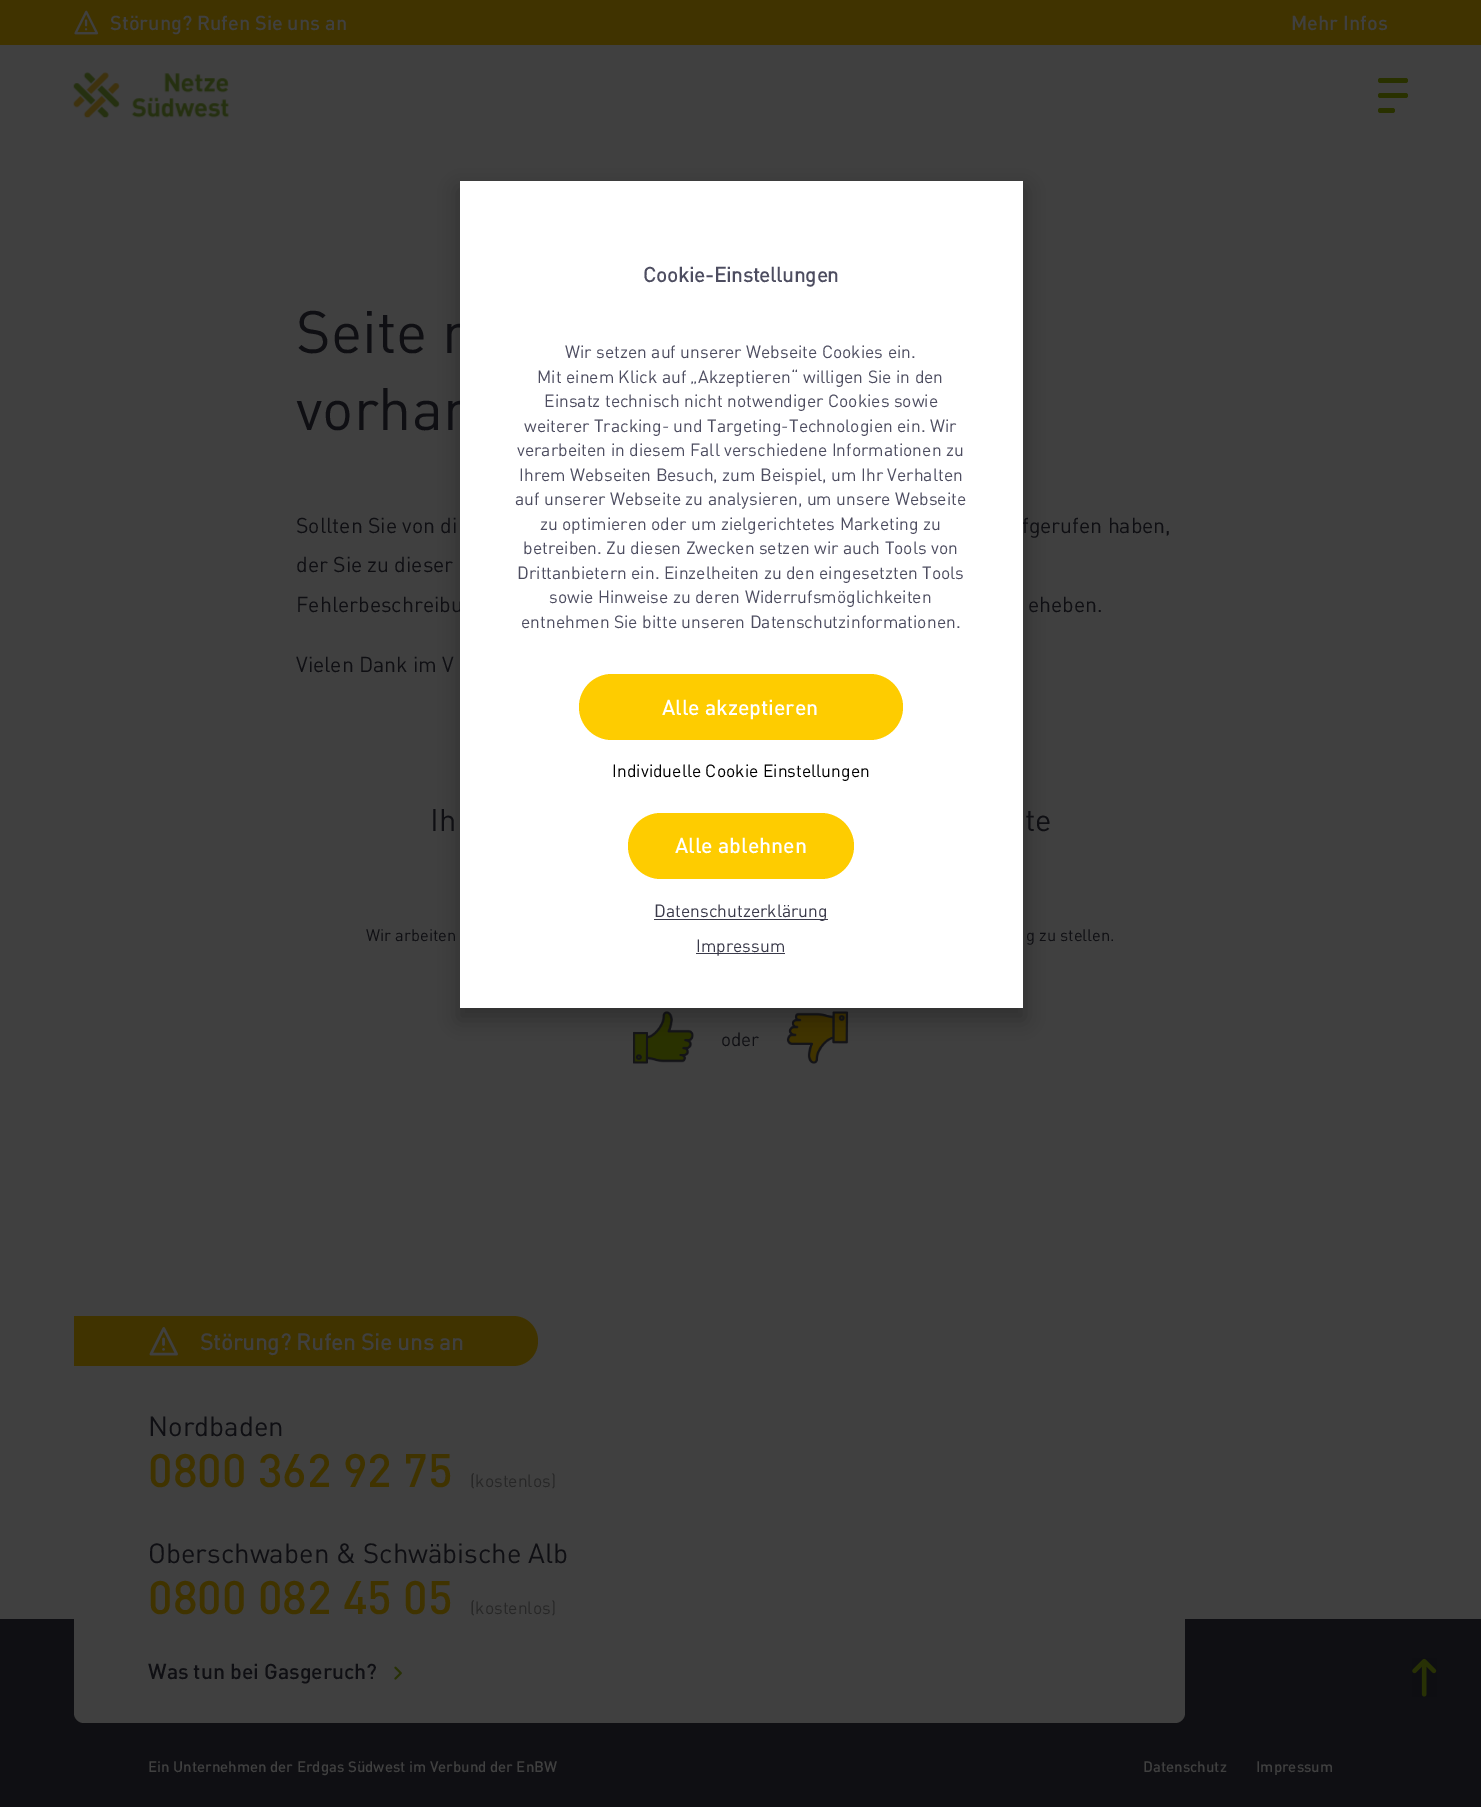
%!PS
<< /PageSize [1481 1807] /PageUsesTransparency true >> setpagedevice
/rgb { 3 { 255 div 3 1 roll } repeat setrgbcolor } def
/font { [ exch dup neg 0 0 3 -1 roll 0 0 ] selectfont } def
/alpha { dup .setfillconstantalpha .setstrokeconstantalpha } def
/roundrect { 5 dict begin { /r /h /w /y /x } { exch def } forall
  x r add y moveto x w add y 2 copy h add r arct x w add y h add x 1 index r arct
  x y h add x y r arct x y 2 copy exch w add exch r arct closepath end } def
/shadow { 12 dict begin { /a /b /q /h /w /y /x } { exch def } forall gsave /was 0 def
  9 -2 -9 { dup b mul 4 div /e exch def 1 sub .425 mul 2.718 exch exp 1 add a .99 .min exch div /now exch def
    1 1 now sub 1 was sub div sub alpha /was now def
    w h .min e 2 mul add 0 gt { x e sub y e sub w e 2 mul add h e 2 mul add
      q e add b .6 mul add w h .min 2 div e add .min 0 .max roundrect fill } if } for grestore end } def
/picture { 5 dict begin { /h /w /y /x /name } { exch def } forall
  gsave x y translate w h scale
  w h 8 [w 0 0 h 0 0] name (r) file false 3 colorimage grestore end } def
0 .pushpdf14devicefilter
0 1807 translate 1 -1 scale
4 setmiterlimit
64 64 64 rgb
0 0 1481 1807 rectfill
64 51 0 rgb
0 0 1481 45 rectfill
(img/1.rgb) 74 10 25 25 picture
(img/2.rgb) 73 72 156 46 picture
41 49 0 rgb
1378 78 30 5 2.5 roundrect fill
1378 93 30 5 2.5 roundrect fill
1378 108 17 5 2.5 roundrect fill
(img/3.rgb) 633 1011 61 53 picture
(img/4.rgb) 786 1011 63 53 picture
0 0 0 rgb
458 189 567 831 0 9.5 0.25 shadow
15 15 19 rgb
0 1619 1481 188 rectfill
64 64 64 rgb
74 1256 1111 467 10 roundrect fill
64 51 0 rgb
74 1316 moveto 513 1316 lineto 527 1316 538 1327 538 1341 curveto 538 1355 527 1366 513 1366 curveto 74 1366 lineto closepath fill
(img/5.rgb) 149 1327 29 29 picture
(img/6.rgb) 394 1666 8 14 picture
(img/7.rgb) 1412 1658 25 39 picture
/DIN-Medium 20 font
64 64 64 rgb
110 30 moveto (Störung? Rufen Sie uns an) show
1291 30 moveto (Mehr Infos) show
/DIN-Regular 59 font
15 15 19 rgb
296 353 moveto (Seite n) show
296 430 moveto (vorhan) show
/DIN-Regular 21.25 font
[
  [(Sollten Sie von di) 296 533]
  [(fgerufen haben,) 1022 533]
  [(der Sie zu dieser) 296 572]
  [(Fehlerbeschreibu) 296 612]
] { aload pop moveto show } forall
255 255 255 rgb
460 181 563 827 rectfill
58 58 74 rgb
696 953 89 1 rectfill
/DIN-Regular 17.5 font
696 952 moveto (Impressum) show
654 919 174 1 rectfill
654 917 moveto (Datenschutzerklärung) show
254 204 0 rgb
628 813 226 66 33 roundrect fill
/DIN-Medium 21.25 font
255 255 255 rgb
675 853 moveto (Alle ablehnen) show
/DIN-Regular 17.5 font
0 0 0 rgb
612 777 moveto (Individuelle Cookie Einstellungen) show
254 204 0 rgb
579 674 324 66 33 roundrect fill
/DIN-Medium 21.25 font
255 255 255 rgb
662 715 moveto (Alle akzeptieren) show
/DIN-Regular 17.5 font
77 77 96 rgb
[
  [(entnehmen Sie bitte unseren Datenschutzinformationen.) 521 628]
  [(sowie Hinweise zu deren Widerrufsmöglichkeiten) 549 603]
  [(Drittanbietern ein. Einzelheiten zu den eingesetzten Tools) 517 579]
  [(betreiben. Zu diesen Zwecken setzen wir auch Tools von) 523 554]
  [(zu optimieren oder um zielgerichtetes Marketing zu) 540 530]
  [(auf unserer Webseite zu analysieren, um unsere Webseite) 515 505]
  [(Ihrem Webseiten Besuch, zum Beispiel, um Ihr Verhalten) 519 481]
  [(verarbeiten in diesem Fall verschiedene Informationen zu) 517 456]
  [(weiterer Tracking- und Targeting-Technologien ein. Wir) 524 432]
  [(Einsatz technisch nicht notwendiger Cookies sowie) 544 407]
  [(Mit einem Klick auf „Akzeptieren“ willigen Sie in den) 537 383]
  [(Wir setzen auf unserer Webseite Cookies ein.) 565 358]
] { aload pop moveto show } forall
/DIN-Bold 20.5 font
643 282 moveto (Cookie-Einstellungen) show
/DIN-Regular 21.25 font
15 15 19 rgb
1028 612 moveto (eheben.) show
296 672 moveto (Vielen Dank im V) show
/DIN-Regular 31 font
430 831 moveto (Ih) show
1025 831 moveto (te) show
/DIN-Regular 16.5 font
366 941 moveto (Wir arbeiten) show
1026 941 moveto (g zu stellen.) show
/DIN-Regular 19 font
721 1046 moveto (oder) show
/DIN-Bold 22.5 font
64 64 64 rgb
200 1350 moveto (Störung? Rufen Sie uns an) show
/DIN-Regular 27.5 font
15 15 19 rgb
148 1436 moveto (Nordbaden) show
/DIN-Medium 46.25 font
64 51 0 rgb
148 1487 moveto (0800 362 92 75) show
/DIN-Regular 17.5 font
39 39 39 rgb
470 1487 moveto (\(kostenlos\)) show
/DIN-Regular 27.5 font
15 15 19 rgb
148 1563 moveto (Oberschwaben & Schwäbische Alb) show
/DIN-Medium 46.25 font
64 51 0 rgb
148 1614 moveto (0800 082 45 05) show
/DIN-Regular 17.5 font
39 39 39 rgb
470 1614 moveto (\(kostenlos\)) show
/DIN-Medium 21.25 font
15 15 19 rgb
148 1679 moveto (Was tun bei Gasgeruch?) show
/DIN-Medium 15 font
64 64 64 rgb
[
  [(Ein Unternehmen der Erdgas Südwest im Verbund der EnBW) 148 1772]
  [(Datenschutz) 1143 1772]
  [(Impressum) 1256 1772]
] { aload pop moveto show } forall
.poppdf14devicefilter showpage
